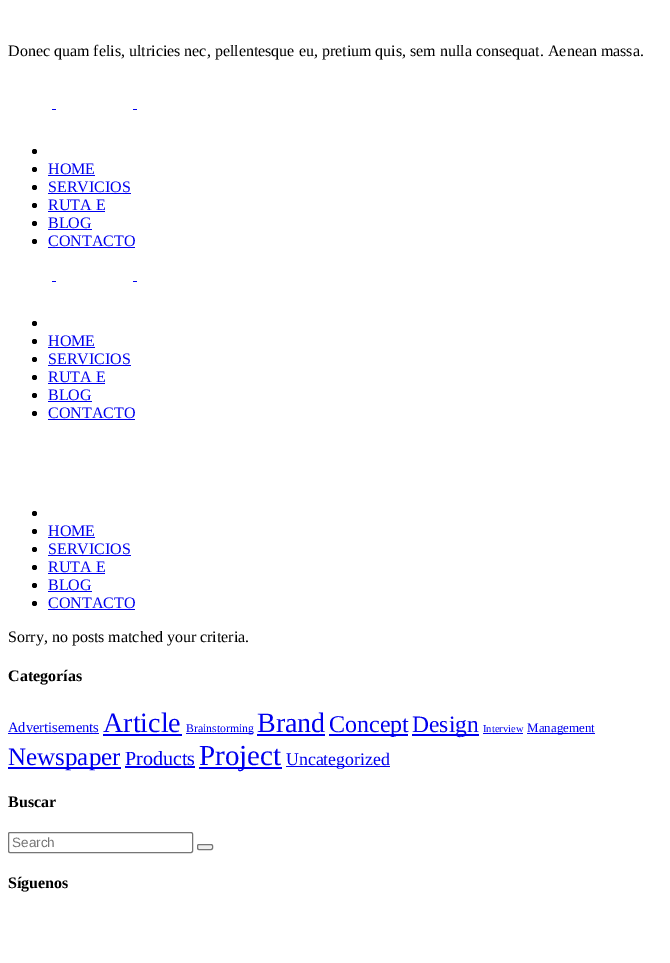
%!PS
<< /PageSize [670 963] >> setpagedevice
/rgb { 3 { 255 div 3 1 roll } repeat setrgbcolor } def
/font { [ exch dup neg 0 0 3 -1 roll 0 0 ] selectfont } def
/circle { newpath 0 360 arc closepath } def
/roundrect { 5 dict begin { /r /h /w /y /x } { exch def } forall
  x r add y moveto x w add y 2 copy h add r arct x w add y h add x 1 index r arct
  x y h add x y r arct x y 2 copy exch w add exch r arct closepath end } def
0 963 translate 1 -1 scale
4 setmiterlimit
255 255 255 rgb
0 0 670 963 rectfill
0 0 238 rgb
52 109 4 1 rectfill
133 109 4 1 rectfill
0 0 0 rgb
34.5 151.5 2.5 circle fill
34.5 169.5 2.5 circle fill
0 0 238 rgb
48 175 47 1 rectfill
0 0 0 rgb
34.5 187.5 2.5 circle fill
0 0 238 rgb
48 193 83 1 rectfill
0 0 0 rgb
34.5 205.5 2.5 circle fill
0 0 238 rgb
48 211 57 1 rectfill
0 0 0 rgb
34.5 223.5 2.5 circle fill
0 0 238 rgb
48 229 44 1 rectfill
0 0 0 rgb
34.5 241.5 2.5 circle fill
[
  [48 247 87 1 0 0 238]
  [52 281 4 1 0 0 238]
  [133 281 4 1 0 0 238]
] { aload pop rgb rectfill } forall
0 0 0 rgb
34.5 323.5 2.5 circle fill
34.5 341.5 2.5 circle fill
0 0 238 rgb
48 347 47 1 rectfill
0 0 0 rgb
34.5 359.5 2.5 circle fill
0 0 238 rgb
48 365 83 1 rectfill
0 0 0 rgb
34.5 377.5 2.5 circle fill
0 0 238 rgb
48 383 57 1 rectfill
0 0 0 rgb
34.5 395.5 2.5 circle fill
0 0 238 rgb
48 401 44 1 rectfill
0 0 0 rgb
34.5 413.5 2.5 circle fill
0 0 238 rgb
48 419 87 1 rectfill
0 0 0 rgb
34.5 513.5 2.5 circle fill
34.5 531.5 2.5 circle fill
0 0 238 rgb
48 537 47 1 rectfill
0 0 0 rgb
34.5 549.5 2.5 circle fill
0 0 238 rgb
48 555 83 1 rectfill
0 0 0 rgb
34.5 567.5 2.5 circle fill
0 0 238 rgb
48 573 57 1 rectfill
0 0 0 rgb
34.5 585.5 2.5 circle fill
0 0 238 rgb
48 591 44 1 rectfill
0 0 0 rgb
34.5 603.5 2.5 circle fill
[
  [48 609 87 1 0 0 238]
  [8 733 91 1 0 0 238]
  [103 734 79 2 0 0 238]
  [186 733 67 1 0 0 238]
  [257 734 68 2 0 0 238]
  [329 734 79 2 0 0 238]
  [412 734 67 2 0 0 238]
  [483 733 40 1 0 0 238]
  [527 733 68 1 0 0 238]
  [8 767 113 2 0 0 238]
  [125 766 70 2 0 0 238]
  [199 767 83 2 0 0 238]
  [286 766 104 1 0 0 238]
] { aload pop rgb rectfill } forall
118 118 118 rgb
8.5 832.5 184 20 1.5 roundrect stroke
239 239 239 rgb
197.5 844.5 15 5 1.5 roundrect gsave fill grestore
118 118 118 rgb
stroke
/LiberationSerif-Regular 16 font
0 0 0 rgb
8 56 moveto (Donec quam felis, ultricies nec, pellentesque eu, pretium quis, sem nulla consequat. Aenean massa.) show
0 0 238 rgb
[
  [(HOME) 48 174]
  [(SERVICIOS) 48 192]
  [(RUTA E) 48 210]
  [(BLOG) 48 228]
  [(CONTACTO) 48 246]
  [(HOME) 48 346]
  [(SERVICIOS) 48 364]
  [(RUTA E) 48 382]
  [(BLOG) 48 400]
  [(CONTACTO) 48 418]
  [(HOME) 48 536]
  [(SERVICIOS) 48 554]
  [(RUTA E) 48 572]
  [(BLOG) 48 590]
  [(CONTACTO) 48 608]
] { aload pop moveto show } forall
0 0 0 rgb
8 642 moveto (Sorry, no posts matched your criteria.) show
/LiberationSerif-Bold 16 font
8 681 moveto (Categorías) show
/LiberationSerif-Regular 14.5 font
0 0 238 rgb
8 732 moveto (Advertisements) show
/LiberationSerif-Regular 28 font
103 732 moveto (Article) show
/LiberationSerif-Regular 11.75 font
186 732 moveto (Brainstorming) show
/LiberationSerif-Regular 28 font
257 732 moveto (Brand) show
/LiberationSerif-Regular 24 font
329 732 moveto (Concept) show
/LiberationSerif-Regular 23.5 font
412 732 moveto (Design) show
/LiberationSerif-Regular 10.5 font
483 732 moveto (Interview) show
/LiberationSerif-Regular 13 font
527 732 moveto (Management) show
/LiberationSerif-Regular 25 font
8 765 moveto (Newspaper) show
/LiberationSerif-Regular 20 font
125 765 moveto (Products) show
/LiberationSerif-Regular 29 font
199 765 moveto (Project) show
/LiberationSerif-Regular 17.75 font
286 765 moveto (Uncategorized) show
/LiberationSerif-Bold 16 font
0 0 0 rgb
8 807 moveto (Buscar) show
/LiberationSans-Regular 13.5 font
117 117 117 rgb
12 847 moveto (Search) show
/LiberationSerif-Bold 16 font
0 0 0 rgb
8 888 moveto (Síguenos) show
showpage
